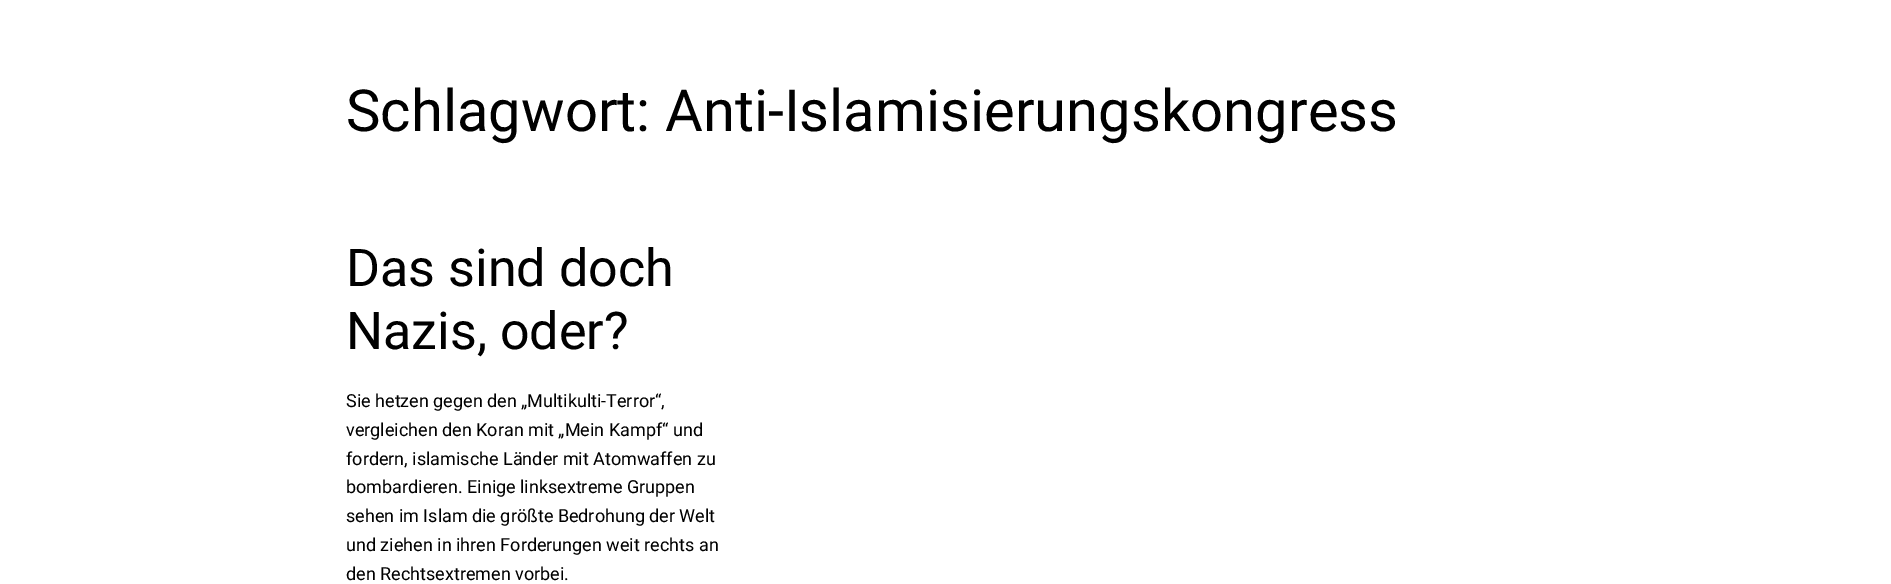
%!PS
<< /PageSize [1891 584] >> setpagedevice
/rgb { 3 { 255 div 3 1 roll } repeat setrgbcolor } def
/font { [ exch dup neg 0 0 3 -1 roll 0 0 ] selectfont } def
0 584 translate 1 -1 scale
4 setmiterlimit
255 255 255 rgb
0 0 1891 584 rectfill
/Roboto-Regular 58 font
0 0 0 rgb
346 131 moveto (Schlagwort: Anti-Islamisierungskongress) show
/Roboto-Regular 52 font
346 286 moveto (Das sind doch) show
346 349 moveto (Nazis, oder?) show
/Roboto-Regular 18 font
[
  [(Sie hetzen gegen den „Multikulti-Terror“,) 346 407]
  [(vergleichen den Koran mit „Mein Kampf“ und) 346 436]
  [(fordern, islamische Länder mit Atomwaffen zu) 346 465]
  [(bombardieren. Einige linksextreme Gruppen) 346 493]
  [(sehen im Islam die größte Bedrohung der Welt) 346 522]
  [(und ziehen in ihren Forderungen weit rechts an) 346 551]
  [(den Rechtsextremen vorbei.) 346 580]
] { aload pop moveto show } forall
showpage
